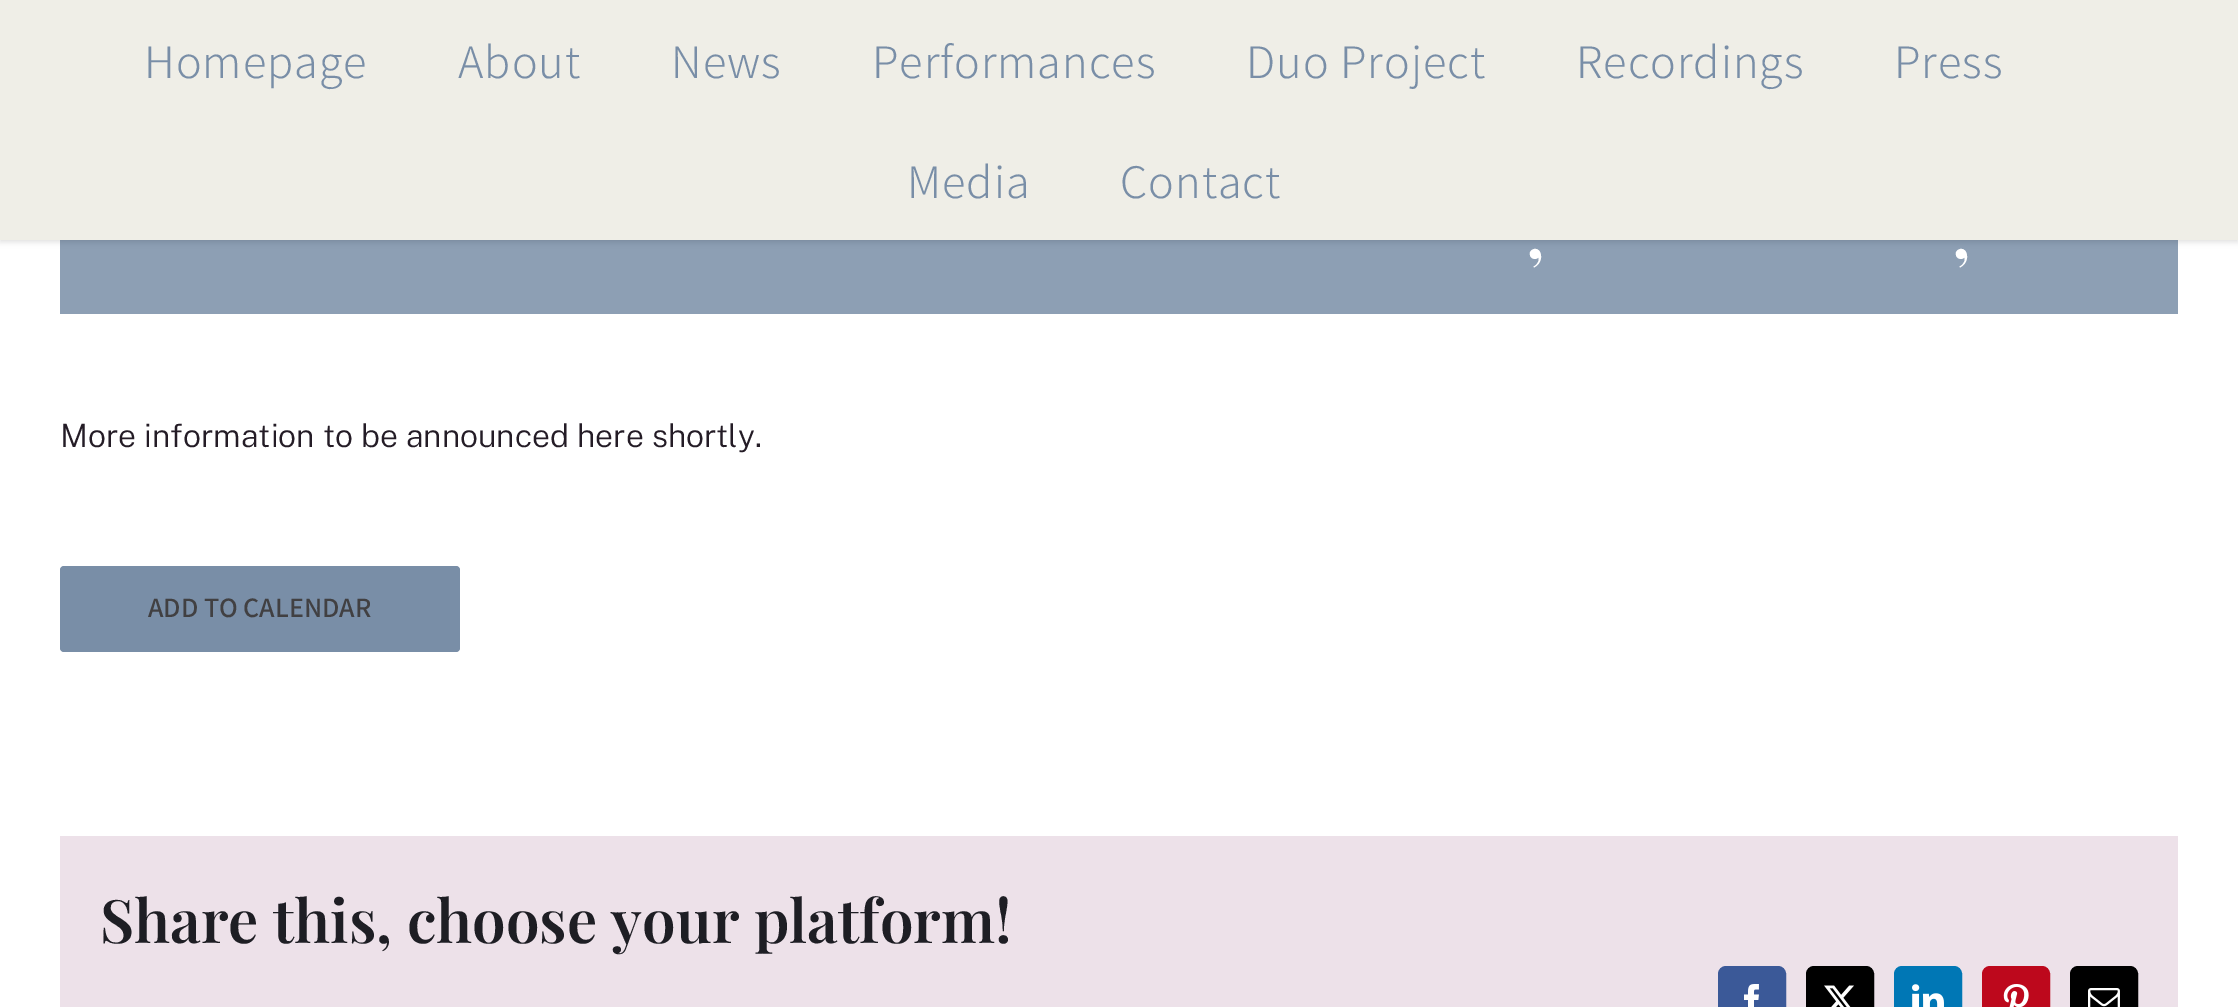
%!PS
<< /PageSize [2238 1007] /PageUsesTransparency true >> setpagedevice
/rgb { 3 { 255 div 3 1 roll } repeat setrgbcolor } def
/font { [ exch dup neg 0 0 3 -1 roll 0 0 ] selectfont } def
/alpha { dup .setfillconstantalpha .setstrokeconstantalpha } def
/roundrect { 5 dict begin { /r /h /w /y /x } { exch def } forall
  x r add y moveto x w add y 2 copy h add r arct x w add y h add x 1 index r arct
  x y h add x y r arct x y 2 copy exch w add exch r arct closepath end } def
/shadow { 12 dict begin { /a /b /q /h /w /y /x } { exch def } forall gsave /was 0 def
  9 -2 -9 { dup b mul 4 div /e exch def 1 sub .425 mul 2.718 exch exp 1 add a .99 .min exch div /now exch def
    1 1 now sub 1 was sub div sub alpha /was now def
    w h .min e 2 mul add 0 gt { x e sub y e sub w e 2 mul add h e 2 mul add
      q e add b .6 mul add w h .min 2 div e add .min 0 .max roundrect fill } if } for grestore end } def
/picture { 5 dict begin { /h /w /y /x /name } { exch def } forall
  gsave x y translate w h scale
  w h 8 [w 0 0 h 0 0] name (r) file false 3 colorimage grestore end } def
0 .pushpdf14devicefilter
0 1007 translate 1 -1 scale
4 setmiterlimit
255 255 255 rgb
0 0 2238 1007 rectfill
141 159 180 rgb
60 240 2118 74 rectfill
0 0 0 rgb
0 2 2238 240 0 3 0.12 shadow
239 238 231 rgb
0 0 2238 240 rectfill
121 142 167 rgb
60 566 400 86 4 roundrect fill
237 225 233 rgb
60 836 2118 171 rectfill
59 89 152 rgb
1719 967 66 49 7 roundrect gsave fill grestore
2 setlinewidth
stroke
(img/1.rgb) 1744 984 15 23 picture
0 0 0 rgb
1807 967 66 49 7 roundrect gsave fill grestore
stroke
(img/2.rgb) 1824 985 30 22 picture
0 119 181 rgb
1895 967 66 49 7 roundrect gsave fill grestore
stroke
(img/3.rgb) 1912 984 32 23 picture
189 8 28 rgb
1983 967 66 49 7 roundrect gsave fill grestore
stroke
(img/4.rgb) 2003 984 26 23 picture
0 0 0 rgb
2071 967 66 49 7 roundrect gsave fill grestore
stroke
(img/5.rgb) 2088 988 32 19 picture
/Assistant-Light 48 font
121 142 167 rgb
144 78 moveto 1 0 (Homepage) ashow
458 78 moveto 1 0 (About) ashow
671 78 moveto 1 0 (News) ashow
872 78 moveto 1 0 (Performances) ashow
1246 78 moveto 1 0 (Duo Project) ashow
1576 78 moveto 1 0 (Recordings) ashow
1894 78 moveto 1 0 (Press) ashow
907 198 moveto 1 0 (Media) ashow
1120 198 moveto 1 0 (Contact) ashow
/PlayfairDisplay-SemiBold 70 font
255 255 255 rgb
1526 258 moveto (,) show
1952 258 moveto (,) show
/PublicSans-Light 32 font
36 28 38 rgb
60 447 moveto (More information to be announced here shortly.) show
/Assistant-SemiBold 28 font
65 64 66 rgb
148 617 moveto (ADD TO CALENDAR) show
/PlayfairDisplay-SemiBold 60 font
30 30 36 rgb
100 943 moveto (Share this, choose your platform!) show
.poppdf14devicefilter showpage
